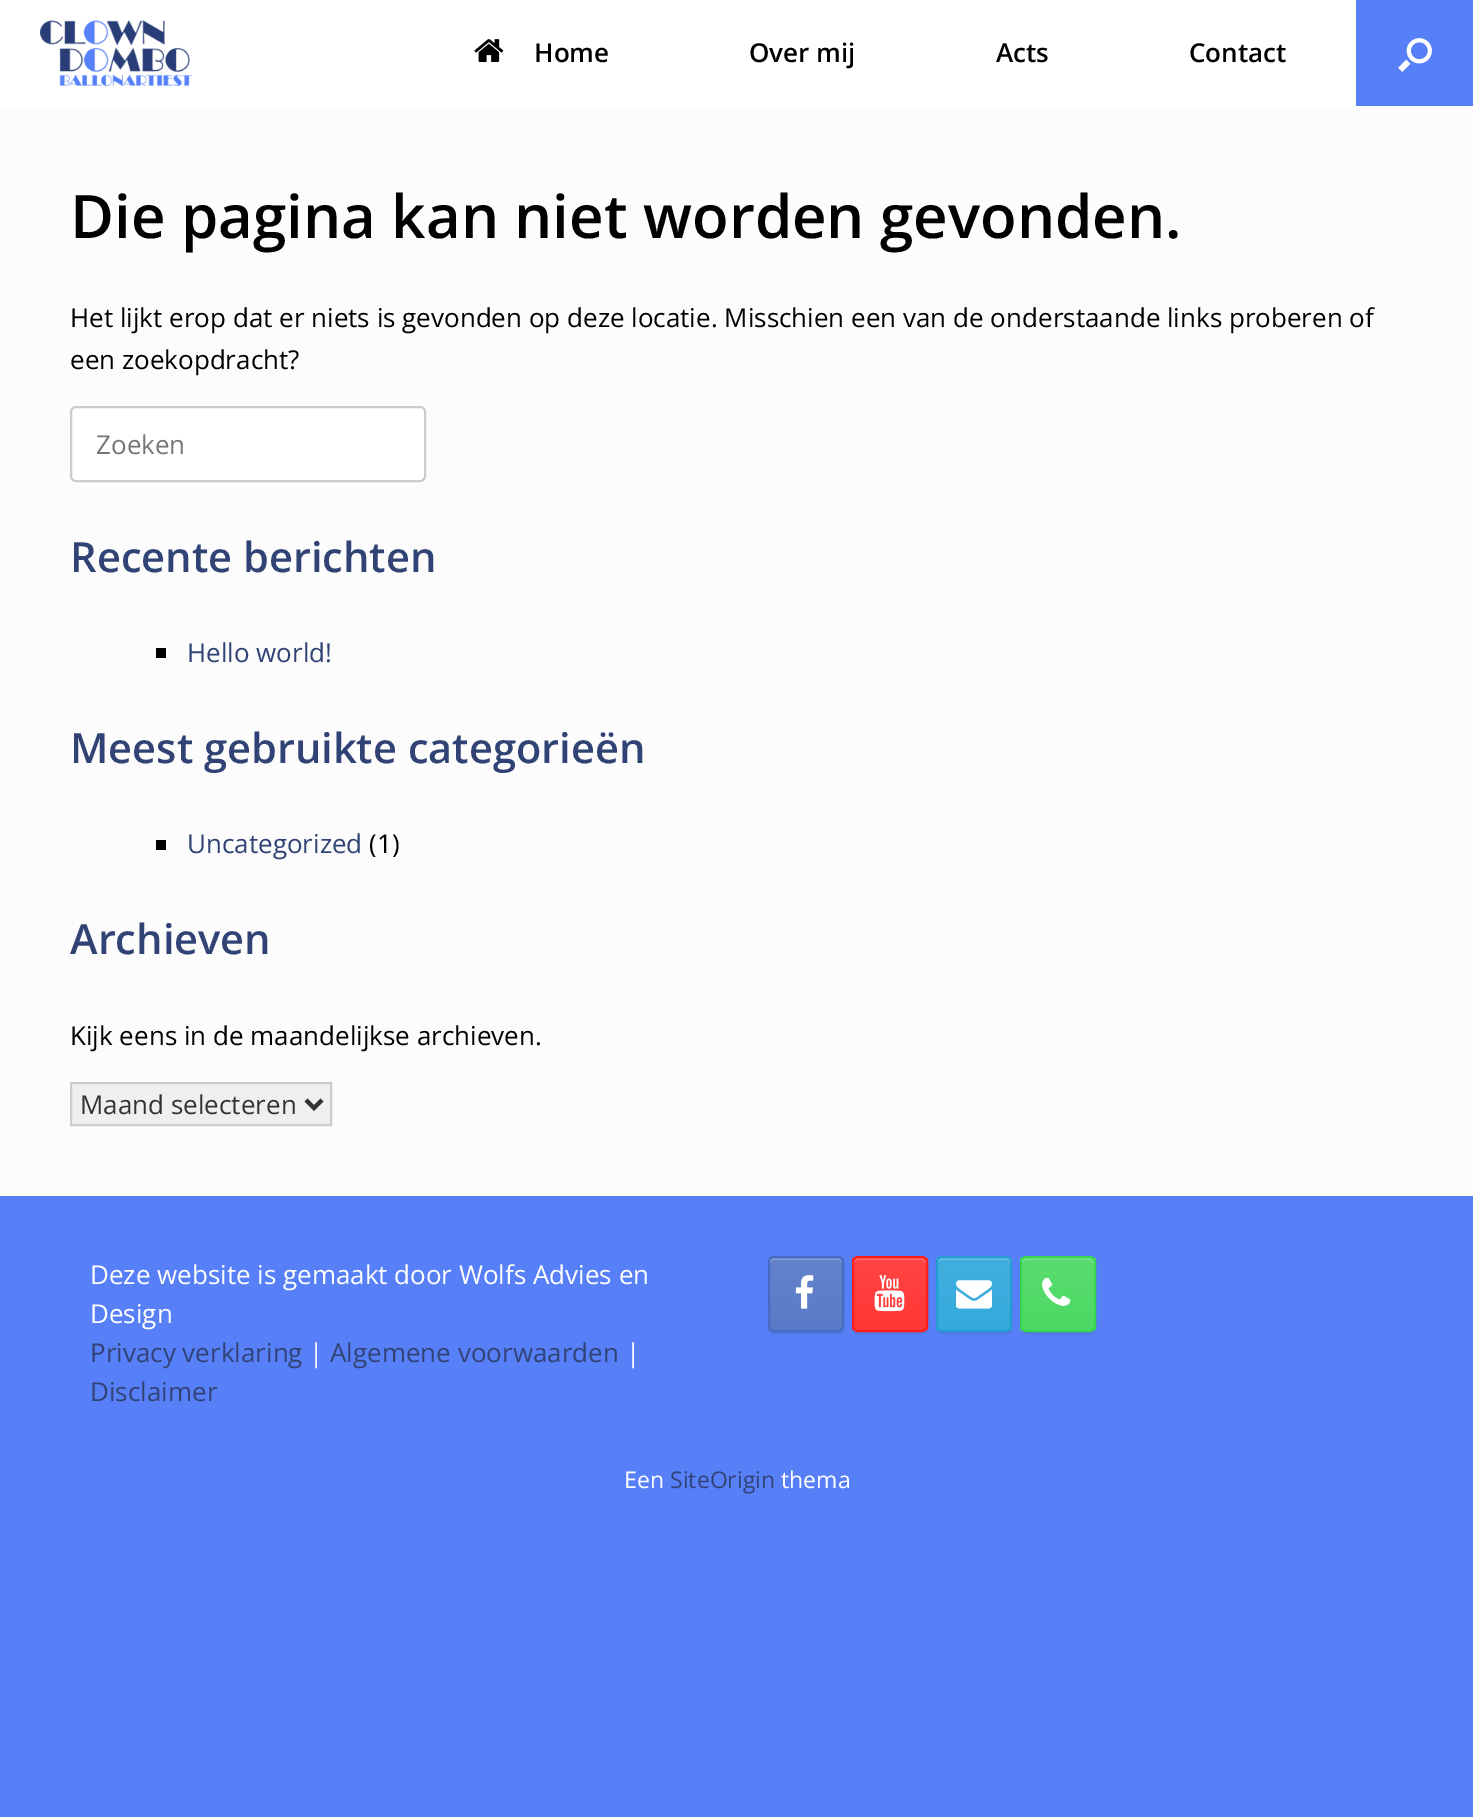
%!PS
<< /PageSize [1473 1817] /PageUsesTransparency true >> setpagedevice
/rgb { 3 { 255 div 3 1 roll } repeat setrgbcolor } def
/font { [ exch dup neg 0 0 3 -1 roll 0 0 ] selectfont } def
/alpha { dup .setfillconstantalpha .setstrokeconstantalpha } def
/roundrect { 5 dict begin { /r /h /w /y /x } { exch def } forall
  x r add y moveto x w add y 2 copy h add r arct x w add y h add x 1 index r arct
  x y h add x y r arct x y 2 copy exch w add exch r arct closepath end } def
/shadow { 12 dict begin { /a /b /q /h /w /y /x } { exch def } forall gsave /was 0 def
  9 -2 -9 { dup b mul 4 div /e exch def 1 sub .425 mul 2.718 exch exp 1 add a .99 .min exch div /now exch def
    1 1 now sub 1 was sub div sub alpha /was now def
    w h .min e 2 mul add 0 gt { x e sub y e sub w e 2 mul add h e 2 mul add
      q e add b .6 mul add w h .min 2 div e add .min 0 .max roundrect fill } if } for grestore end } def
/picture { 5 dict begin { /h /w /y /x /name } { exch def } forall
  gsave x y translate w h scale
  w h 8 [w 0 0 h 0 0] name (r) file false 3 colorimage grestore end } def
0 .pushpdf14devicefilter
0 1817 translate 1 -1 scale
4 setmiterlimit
87 128 248 rgb
0 0 1473 1817 rectfill
255 255 255 rgb
0 0 1356 106 rectfill
(img/1.rgb) 40 20 152 66 picture
(img/2.rgb) 474 39 30 23 picture
(img/3.rgb) 1398 38 34 34 picture
252 252 252 rgb
0 106 1473 1090 rectfill
255 255 255 rgb
71 407 354 74 5 roundrect gsave fill grestore
204 204 204 rgb
2 setlinewidth
stroke
0 0 0 rgb
156 648 10 10 rectfill
156 840 10 10 rectfill
239 239 239 rgb
71 1083 moveto 331 1083 lineto 331 1125 lineto 71 1125 lineto closepath gsave fill grestore
204 204 204 rgb
stroke
51 51 51 rgb
4 setlinewidth
306 1100 moveto 314 1108 lineto 322 1100 lineto stroke
0 0 0 rgb
768 1258 76 76 6 1 0.1 shadow
gsave
768 1256 76 76 6 roundrect clip newpath
gsave 768 1258 moveto 844 1258 lineto 844 1330 lineto 768 1330 lineto closepath clip newpath
<< /ShadingType 2 /ColorSpace /DeviceRGB /Coords [806 1330 806 1258] /Extend [true true] /Function << /FunctionType 2 /Domain [0 1] /C0 [0.349 0.478 0.78] /C1 [0.392 0.514 0.796] /N 1 >> >> shfill grestore
grestore
131 156 213 rgb
774 1260 moveto 838 1260 lineto 840 1260 842 1262 842 1264 curveto 842 1255 835 1258 827 1258 curveto 785 1258 lineto 777 1258 770 1255 770 1264 curveto 770 1262 772 1260 774 1260 curveto closepath fill
70 107 193 rgb
2 setlinewidth
769 1257 74 74 5 roundrect stroke
(img/4.rgb) 795 1275 19 34 picture
0 0 0 rgb
852 1258 76 76 6 1 0.1 shadow
gsave
852 1256 76 76 6 roundrect clip newpath
gsave 852 1258 moveto 928 1258 lineto 928 1330 lineto 852 1330 lineto closepath clip newpath
<< /ShadingType 2 /ColorSpace /DeviceRGB /Coords [890 1330 890 1258] /Extend [true true] /Function << /FunctionType 2 /Domain [0 1] /C0 [1 0.212 0.208] /C1 [1 0.271 0.267] /N 1 >> >> shfill grestore
grestore
255 106 105 rgb
858 1260 moveto 922 1260 lineto 924 1260 926 1262 926 1264 curveto 926 1255 919 1258 911 1258 curveto 869 1258 lineto 861 1258 854 1255 854 1264 curveto 854 1262 856 1260 858 1260 curveto closepath fill
255 29 27 rgb
853 1257 74 74 5 roundrect stroke
(img/5.rgb) 874 1275 31 37 picture
0 0 0 rgb
936 1258 76 76 6 1 0.1 shadow
gsave
936 1256 76 76 6 roundrect clip newpath
gsave 936 1258 moveto 1012 1258 lineto 1012 1330 lineto 936 1330 lineto closepath clip newpath
<< /ShadingType 2 /ColorSpace /DeviceRGB /Coords [974 1330 974 1258] /Extend [true true] /Function << /FunctionType 2 /Domain [0 1] /C0 [0.204 0.667 0.863] /C1 [0.255 0.686 0.871] /N 1 >> >> shfill grestore
grestore
103 191 229 rgb
942 1260 moveto 1006 1260 lineto 1008 1260 1010 1262 1010 1264 curveto 1010 1255 1003 1258 995 1258 curveto 953 1258 lineto 945 1258 938 1255 938 1264 curveto 938 1262 940 1260 942 1260 curveto closepath fill
36 158 210 rgb
937 1257 74 74 5 roundrect stroke
(img/6.rgb) 956 1280 36 29 picture
0 0 0 rgb
1020 1258 76 76 6 1 0.1 shadow
gsave
1020 1256 76 76 6 roundrect clip newpath
gsave 1020 1258 moveto 1096 1258 lineto 1096 1330 lineto 1020 1330 lineto closepath clip newpath
<< /ShadingType 2 /ColorSpace /DeviceRGB /Coords [1058 1330 1058 1258] /Extend [true true] /Function << /FunctionType 2 /Domain [0 1] /C0 [0.298 0.851 0.392] /C1 [0.349 0.863 0.435] /N 1 >> >> shfill grestore
grestore
122 227 140 rgb
1026 1260 moveto 1090 1260 lineto 1092 1260 1094 1262 1094 1264 curveto 1094 1255 1087 1258 1079 1258 curveto 1037 1258 lineto 1029 1258 1022 1255 1022 1264 curveto 1022 1262 1024 1260 1026 1260 curveto closepath fill
55 213 82 rgb
1021 1257 74 74 5 roundrect stroke
(img/7.rgb) 1042 1277 29 29 picture
/OpenSans-SemiBold 26 font
0 0 0 rgb
[
  [(Home) 534 62]
  [(Over mij) 749 62]
  [(Acts) 996 62]
  [(Contact) 1189 62]
] { aload pop moveto show } forall
/OpenSans-SemiBold 60 font
70 238 moveto (Die pagina kan niet worden gevonden.) show
/OpenSans-Regular 26 font
70 327 moveto (Het lijkt erop dat er niets is gevonden op deze locatie. Misschien een van de onderstaande links proberen of) show
70 369 moveto (een zoekopdracht?) show
117 117 117 rgb
96 454 moveto (Zoeken) show
/OpenSans-SemiBold 41.6 font
49 66 117 rgb
70 572 moveto (Recente berichten) show
/OpenSans-Regular 26 font
187 662 moveto (Hello world!) show
/OpenSans-SemiBold 41.6 font
70 763 moveto (Meest gebruikte categorieën) show
/OpenSans-Regular 26 font
187 853 moveto (Uncategorized) show
0 0 0 rgb
369 853 moveto (\(1\)) show
/OpenSans-SemiBold 41.6 font
49 66 117 rgb
70 954 moveto (Archieven) show
/OpenSans-Regular 26 font
0 0 0 rgb
70 1045 moveto (Kijk eens in de maandelijkse archieven.) show
51 51 51 rgb
80 1114 moveto (Maand selecteren) show
255 255 255 rgb
90 1284 moveto (Deze website is gemaakt door Wolfs Advies en) show
90 1323 moveto (Design) show
49 66 117 rgb
90 1362 moveto (Privacy verklaring) show
255 255 255 rgb
309 1362 moveto (|) show
49 66 117 rgb
330 1362 moveto (Algemene voorwaarden) show
255 255 255 rgb
626 1362 moveto (|) show
49 66 117 rgb
90 1401 moveto (Disclaimer) show
/OpenSans-Regular 23 font
255 255 255 rgb
624 1488 moveto (Een) show
49 66 117 rgb
670 1488 moveto (SiteOrigin) show
255 255 255 rgb
781 1488 moveto (thema) show
.poppdf14devicefilter showpage
